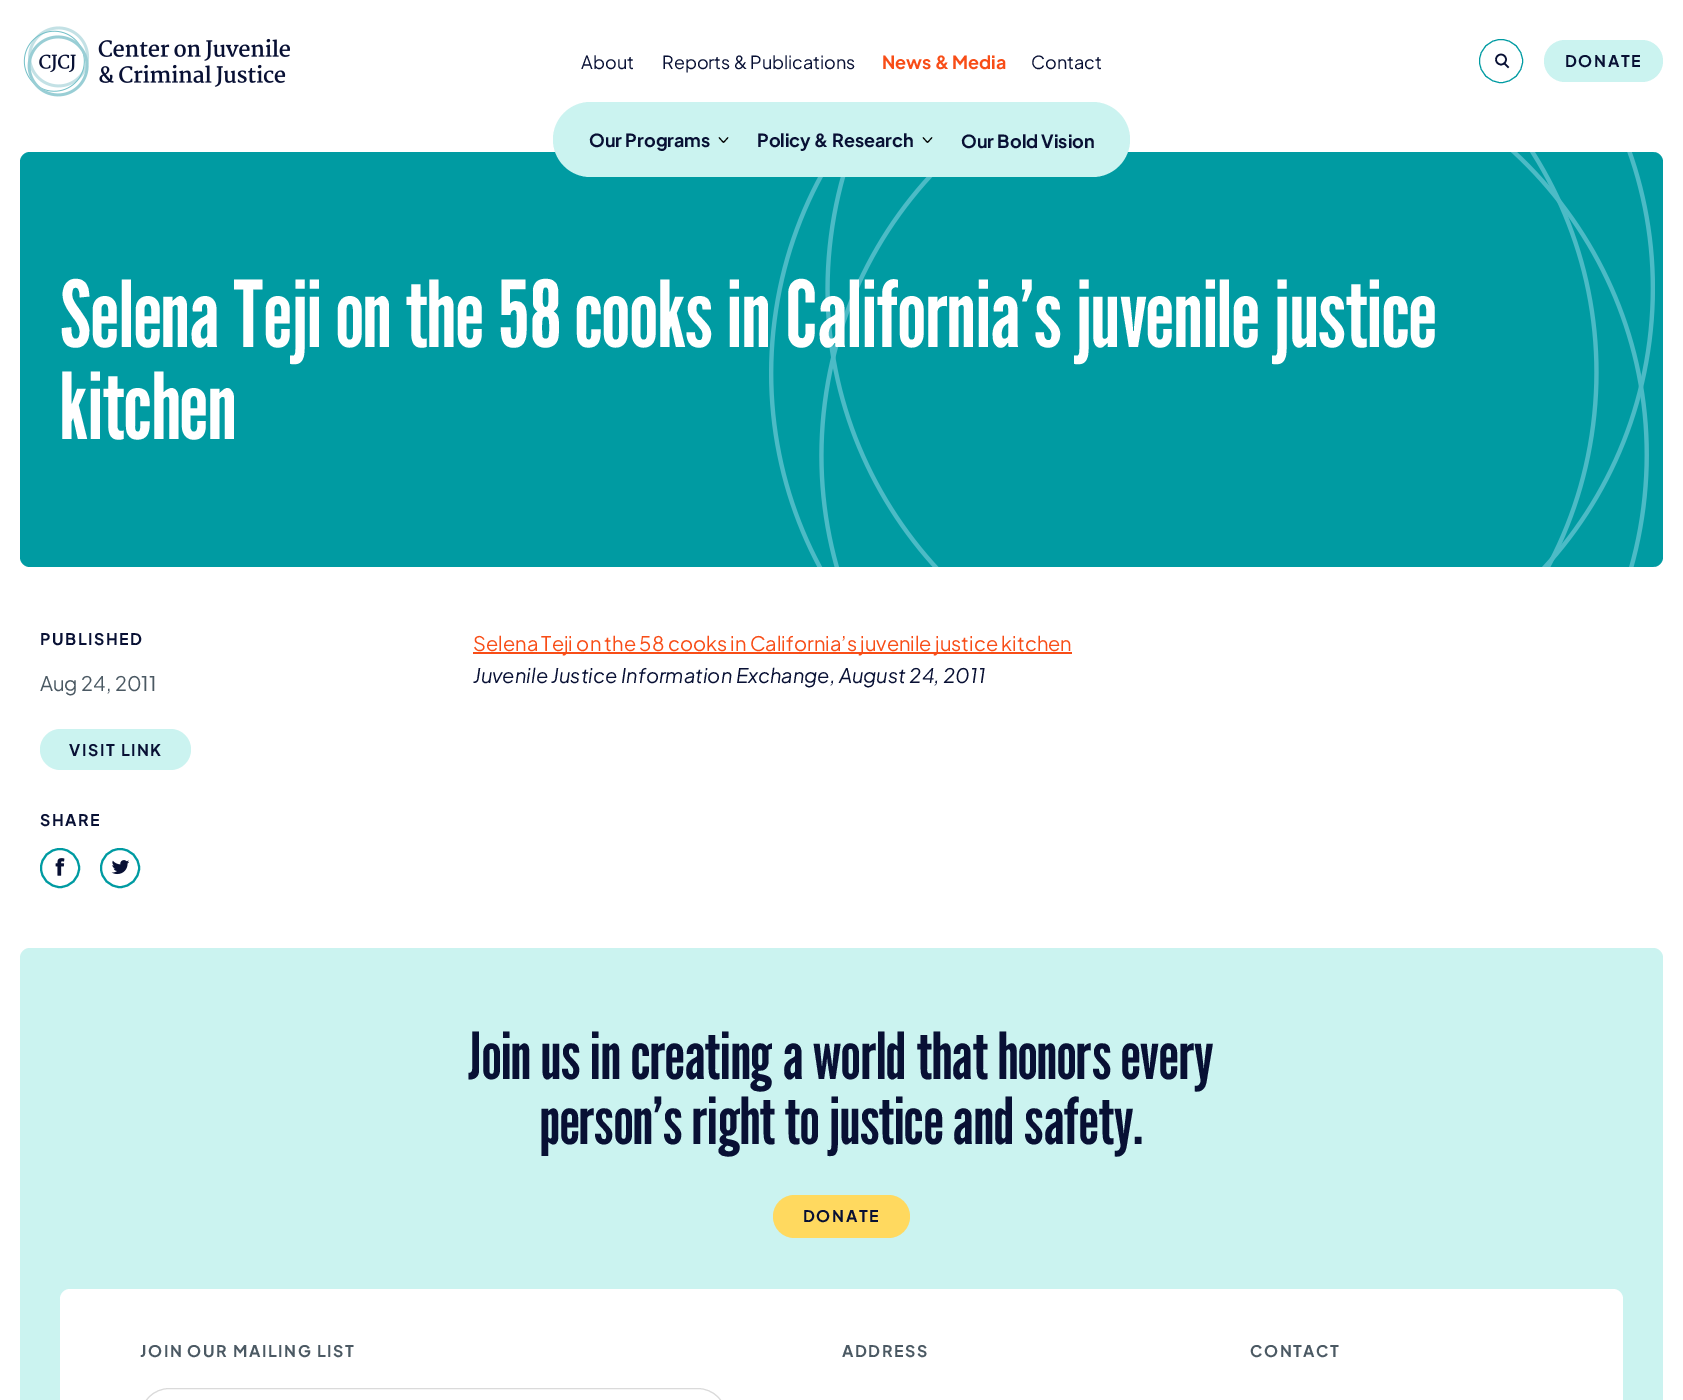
%!PS
<< /PageSize [1683 1400] >> setpagedevice
/rgb { 3 { 255 div 3 1 roll } repeat setrgbcolor } def
/font { [ exch dup neg 0 0 3 -1 roll 0 0 ] selectfont } def
/circle { newpath 0 360 arc closepath } def
/roundrect { 5 dict begin { /r /h /w /y /x } { exch def } forall
  x r add y moveto x w add y 2 copy h add r arct x w add y h add x 1 index r arct
  x y h add x y r arct x y 2 copy exch w add exch r arct closepath end } def
/picture { 5 dict begin { /h /w /y /x /name } { exch def } forall
  gsave x y translate w h scale
  w h 8 [w 0 0 h 0 0] name (r) file false 3 colorimage grestore end } def
0 1400 translate 1 -1 scale
4 setmiterlimit
255 255 255 rgb
0 0 1683 1400 rectfill
(img/1.rgb) 23 26 267 71 picture
0 155 162 rgb
1501 61 21.5 circle stroke
8 16 52 rgb
1.6 setlinewidth
1501 59.5 5 circle stroke
2 setlinecap
1504.5 63.5 moveto 1508 67 lineto stroke
203 243 240 rgb
1544 40 119 42 21 roundrect fill
0 155 162 rgb
20 152 1643 415 10 roundrect fill
(img/2.rgb) 769 152 886 415 picture
203 243 240 rgb
553 102 577 75 37.5 roundrect fill
0 0 0 rgb
1 setlinewidth
0 setlinecap
723.5 142.5 moveto 728 137.5 lineto 719 137.5 moveto 723.5 142.5 lineto stroke
927.5 142.5 moveto 932 137.5 lineto 923 137.5 moveto 927.5 142.5 lineto stroke
203 243 240 rgb
40 729 151 41 20.5 roundrect fill
0 155 162 rgb
2 setlinewidth
60 868 19 circle stroke
(img/3.rgb) 55 858 10 18 picture
120 868 19 circle stroke
(img/4.rgb) 111 860 18 15 picture
248 77 23 rgb
473 652 599 2 rectfill
203 243 240 rgb
20 948 1643 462 10 roundrect fill
255 217 95 rgb
773 1195 137 43 21.5 roundrect fill
255 255 255 rgb
60 1289 1563 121 10 roundrect fill
218 218 218 rgb
1 setlinewidth
140.5 1388.5 586 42 29 roundrect stroke
/PlusJakartaSans-Regular 18 font
8 16 52 rgb
581 69 moveto (About) show
662 69 moveto (Reports & Publications) show
/PlusJakartaSans-Bold 18 font
248 77 23 rgb
882 69 moveto (News & Media) show
/PlusJakartaSans-Regular 18 font
8 16 52 rgb
1031 69 moveto (Contact) show
/PlusJakartaSans-Bold 16 font
1565 67 moveto 1.6 0 (DONATE) ashow
/PlusJakartaSans-Bold 18 font
[
  [(Our Programs) 589 147]
  [(Policy & Research) 757 147]
  [(Our Bold Vision) 961 148]
] { aload pop moveto show } forall
/LeagueGothic-Regular 92 font
255 255 255 rgb
60 347 moveto (Selena Teji on the 58 cooks in California’s juvenile justice) show
60 439 moveto (kitchen) show
/PlusJakartaSans-Bold 16 font
8 16 52 rgb
40 645 moveto 1.6 0 (PUBLISHED) ashow
/PlusJakartaSans-Regular 20 font
75 89 99 rgb
40 691 moveto (Aug 24, 2011) show
/PlusJakartaSans-Bold 16 font
8 16 52 rgb
69 756 moveto 1.6 0 (VISIT LINK) ashow
40 826 moveto 1.6 0 (SHARE) ashow
/PlusJakartaSans-Regular 20 font
248 77 23 rgb
473 651 moveto (Selena Teji on the 58 cooks in California’s juvenile justice kitchen) show
/PlusJakartaSans-Italic 20 font
8 16 52 rgb
473 683 moveto (Juvenile Justice Information Exchange, August 24, 2011) show
/LeagueGothic-Regular 64.5 font
468 1079 moveto (Join us in creating a world that honors every) show
540 1144 moveto (person’s right to justice and safety.) show
/PlusJakartaSans-Bold 16 font
803 1222 moveto 1.6 0 (DONATE) ashow
75 89 99 rgb
140 1357 moveto 1.6 0 (JOIN OUR MAILING LIST) ashow
842 1357 moveto 1.6 0 (ADDRESS) ashow
1250 1357 moveto 1.6 0 (CONTACT) ashow
showpage
